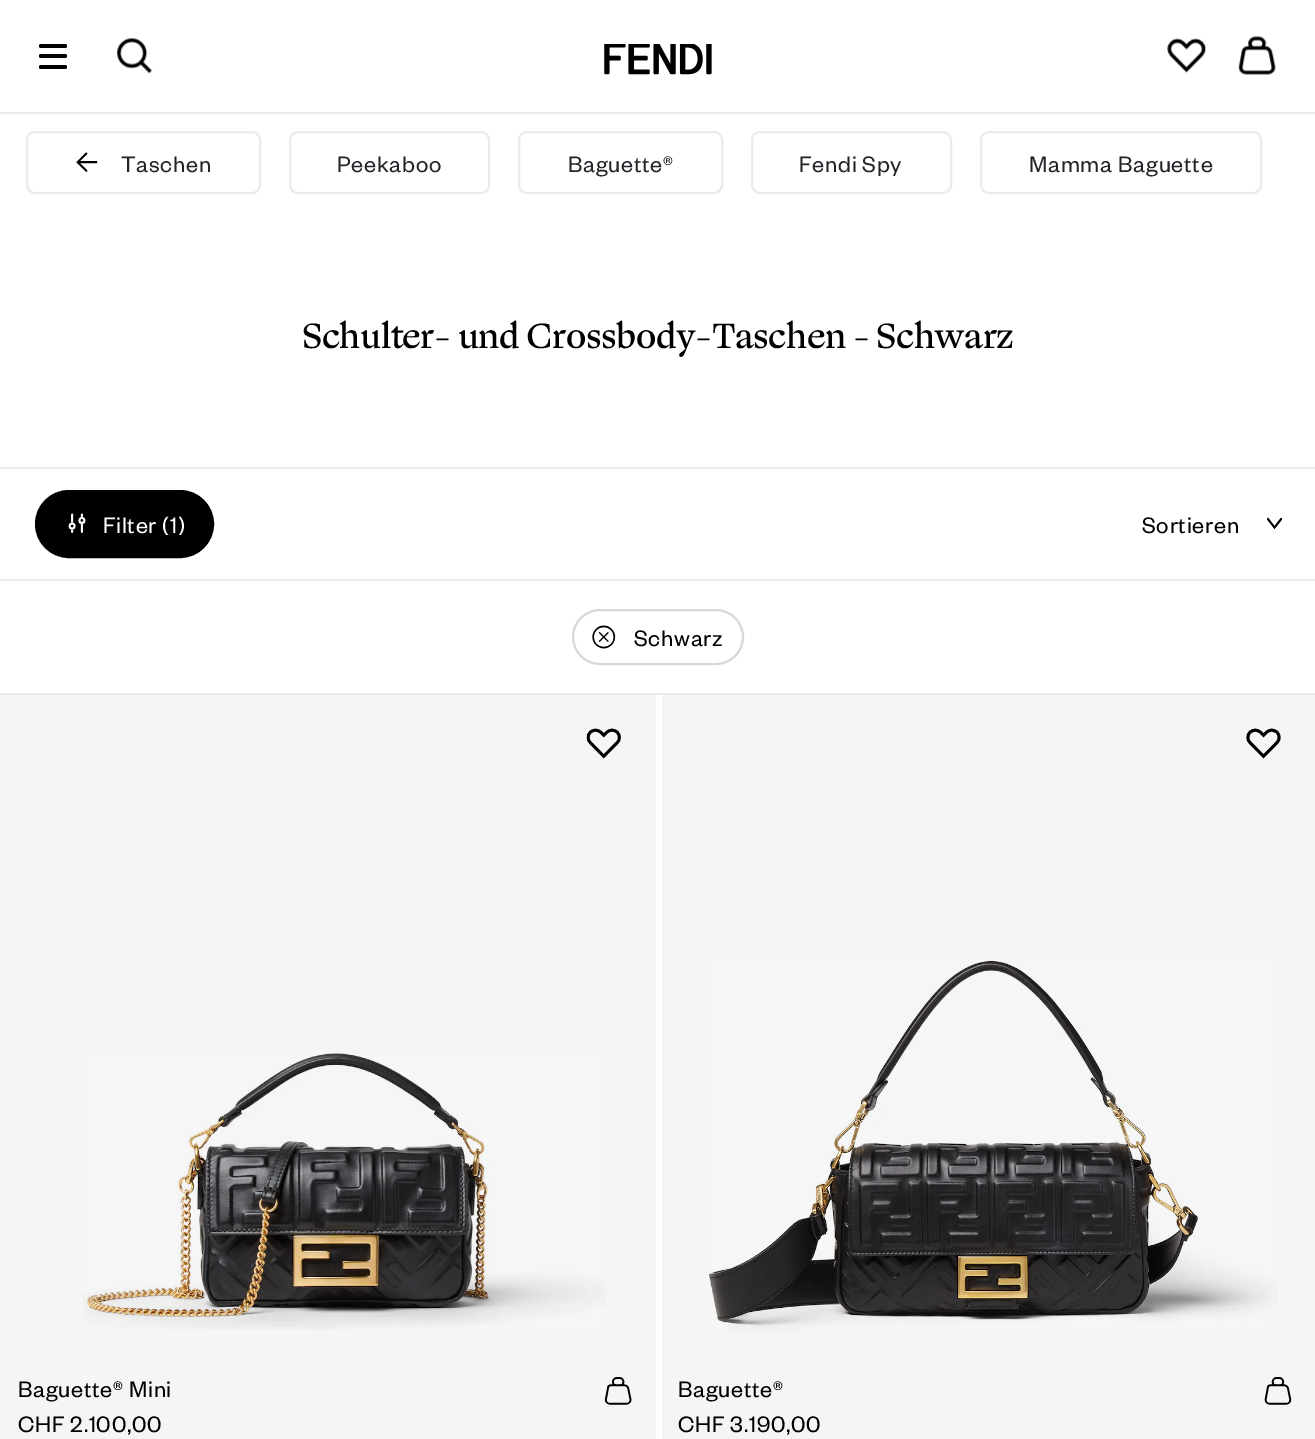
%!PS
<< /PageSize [1315 1439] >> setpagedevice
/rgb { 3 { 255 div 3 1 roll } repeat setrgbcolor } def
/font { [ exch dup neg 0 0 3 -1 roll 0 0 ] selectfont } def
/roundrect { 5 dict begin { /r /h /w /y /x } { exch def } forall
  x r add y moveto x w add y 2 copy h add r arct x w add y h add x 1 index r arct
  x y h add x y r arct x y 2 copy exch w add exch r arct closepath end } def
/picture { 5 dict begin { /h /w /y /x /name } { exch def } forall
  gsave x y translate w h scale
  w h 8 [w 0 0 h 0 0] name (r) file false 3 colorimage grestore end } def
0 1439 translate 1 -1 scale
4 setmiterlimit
255 255 255 rgb
0 0 1315 1439 rectfill
235 235 235 rgb
0 112 1315 2 rectfill
0 0 0 rgb
39 44 28 4 2 roundrect fill
39 54 28 4 2 roundrect fill
39 65 28 4 2 roundrect fill
(img/1.rgb) 117 38 36 36 picture
(img/2.rgb) 604 44 108 31 picture
(img/3.rgb) 1167 38 39 35 picture
(img/4.rgb) 1238 36 38 39 picture
235 235 235 rgb
2 setlinewidth
27 132 233 61 8 roundrect stroke
(img/5.rgb) 76 152 22 20 picture
290 132 199 61 8 roundrect stroke
519 132 203 61 8 roundrect stroke
752 132 199 61 8 roundrect stroke
981 132 280 61 8 roundrect stroke
0 467 1315 2 rectfill
0 579 1315 2 rectfill
0 0 0 rgb
36 491 177 66 33 roundrect gsave fill grestore
stroke
(img/6.rgb) 68 513 18 20 picture
(img/7.rgb) 1267 517 16 13 picture
235 235 235 rgb
0 693 1315 2 rectfill
216 216 216 rgb
573 610 170 54 27 roundrect stroke
(img/8.rgb) 592 625 24 24 picture
245 245 245 rgb
0 695 656 744 rectfill
(img/9.rgb) 586 728 35 31 picture
(img/10.rgb) 83 1053 524 277 picture
(img/11.rgb) 604 1377 28 28 picture
662 695 653 744 rectfill
(img/12.rgb) 1246 728 35 31 picture
(img/13.rgb) 708 960 569 373 picture
(img/14.rgb) 1264 1377 28 28 picture
/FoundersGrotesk-Regular 24.5 font
33 37 41 rgb
121 172 moveto 0.75 0 (Taschen) ashow
337 172 moveto 0.75 0 (Peekaboo) ashow
568 172 moveto 0.75 0 (Baguette®) ashow
799 172 moveto 0.75 0 (Fendi Spy) ashow
1029 172 moveto 0.75 0 (Mamma Baguette) ashow
/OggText-Regular 35 font
0 0 0 rgb
302 348 moveto -0.5 0 (Schulter- und Crossbody-Taschen - Schwarz) ashow
/FoundersGrotesk-Regular 24.5 font
255 255 255 rgb
103 533 moveto 0.75 0 (Filter \(1\)) ashow
0 0 0 rgb
1142 533 moveto 0.75 0 (Sortieren) ashow
634 646 moveto 0.75 0 (Schwarz) ashow
18 1397 moveto 0.75 0 (Baguette® Mini) ashow
18 1432 moveto 0.75 0 (CHF 2.100,00) ashow
678 1397 moveto 0.75 0 (Baguette®) ashow
678 1432 moveto 0.75 0 (CHF 3.190,00) ashow
showpage
